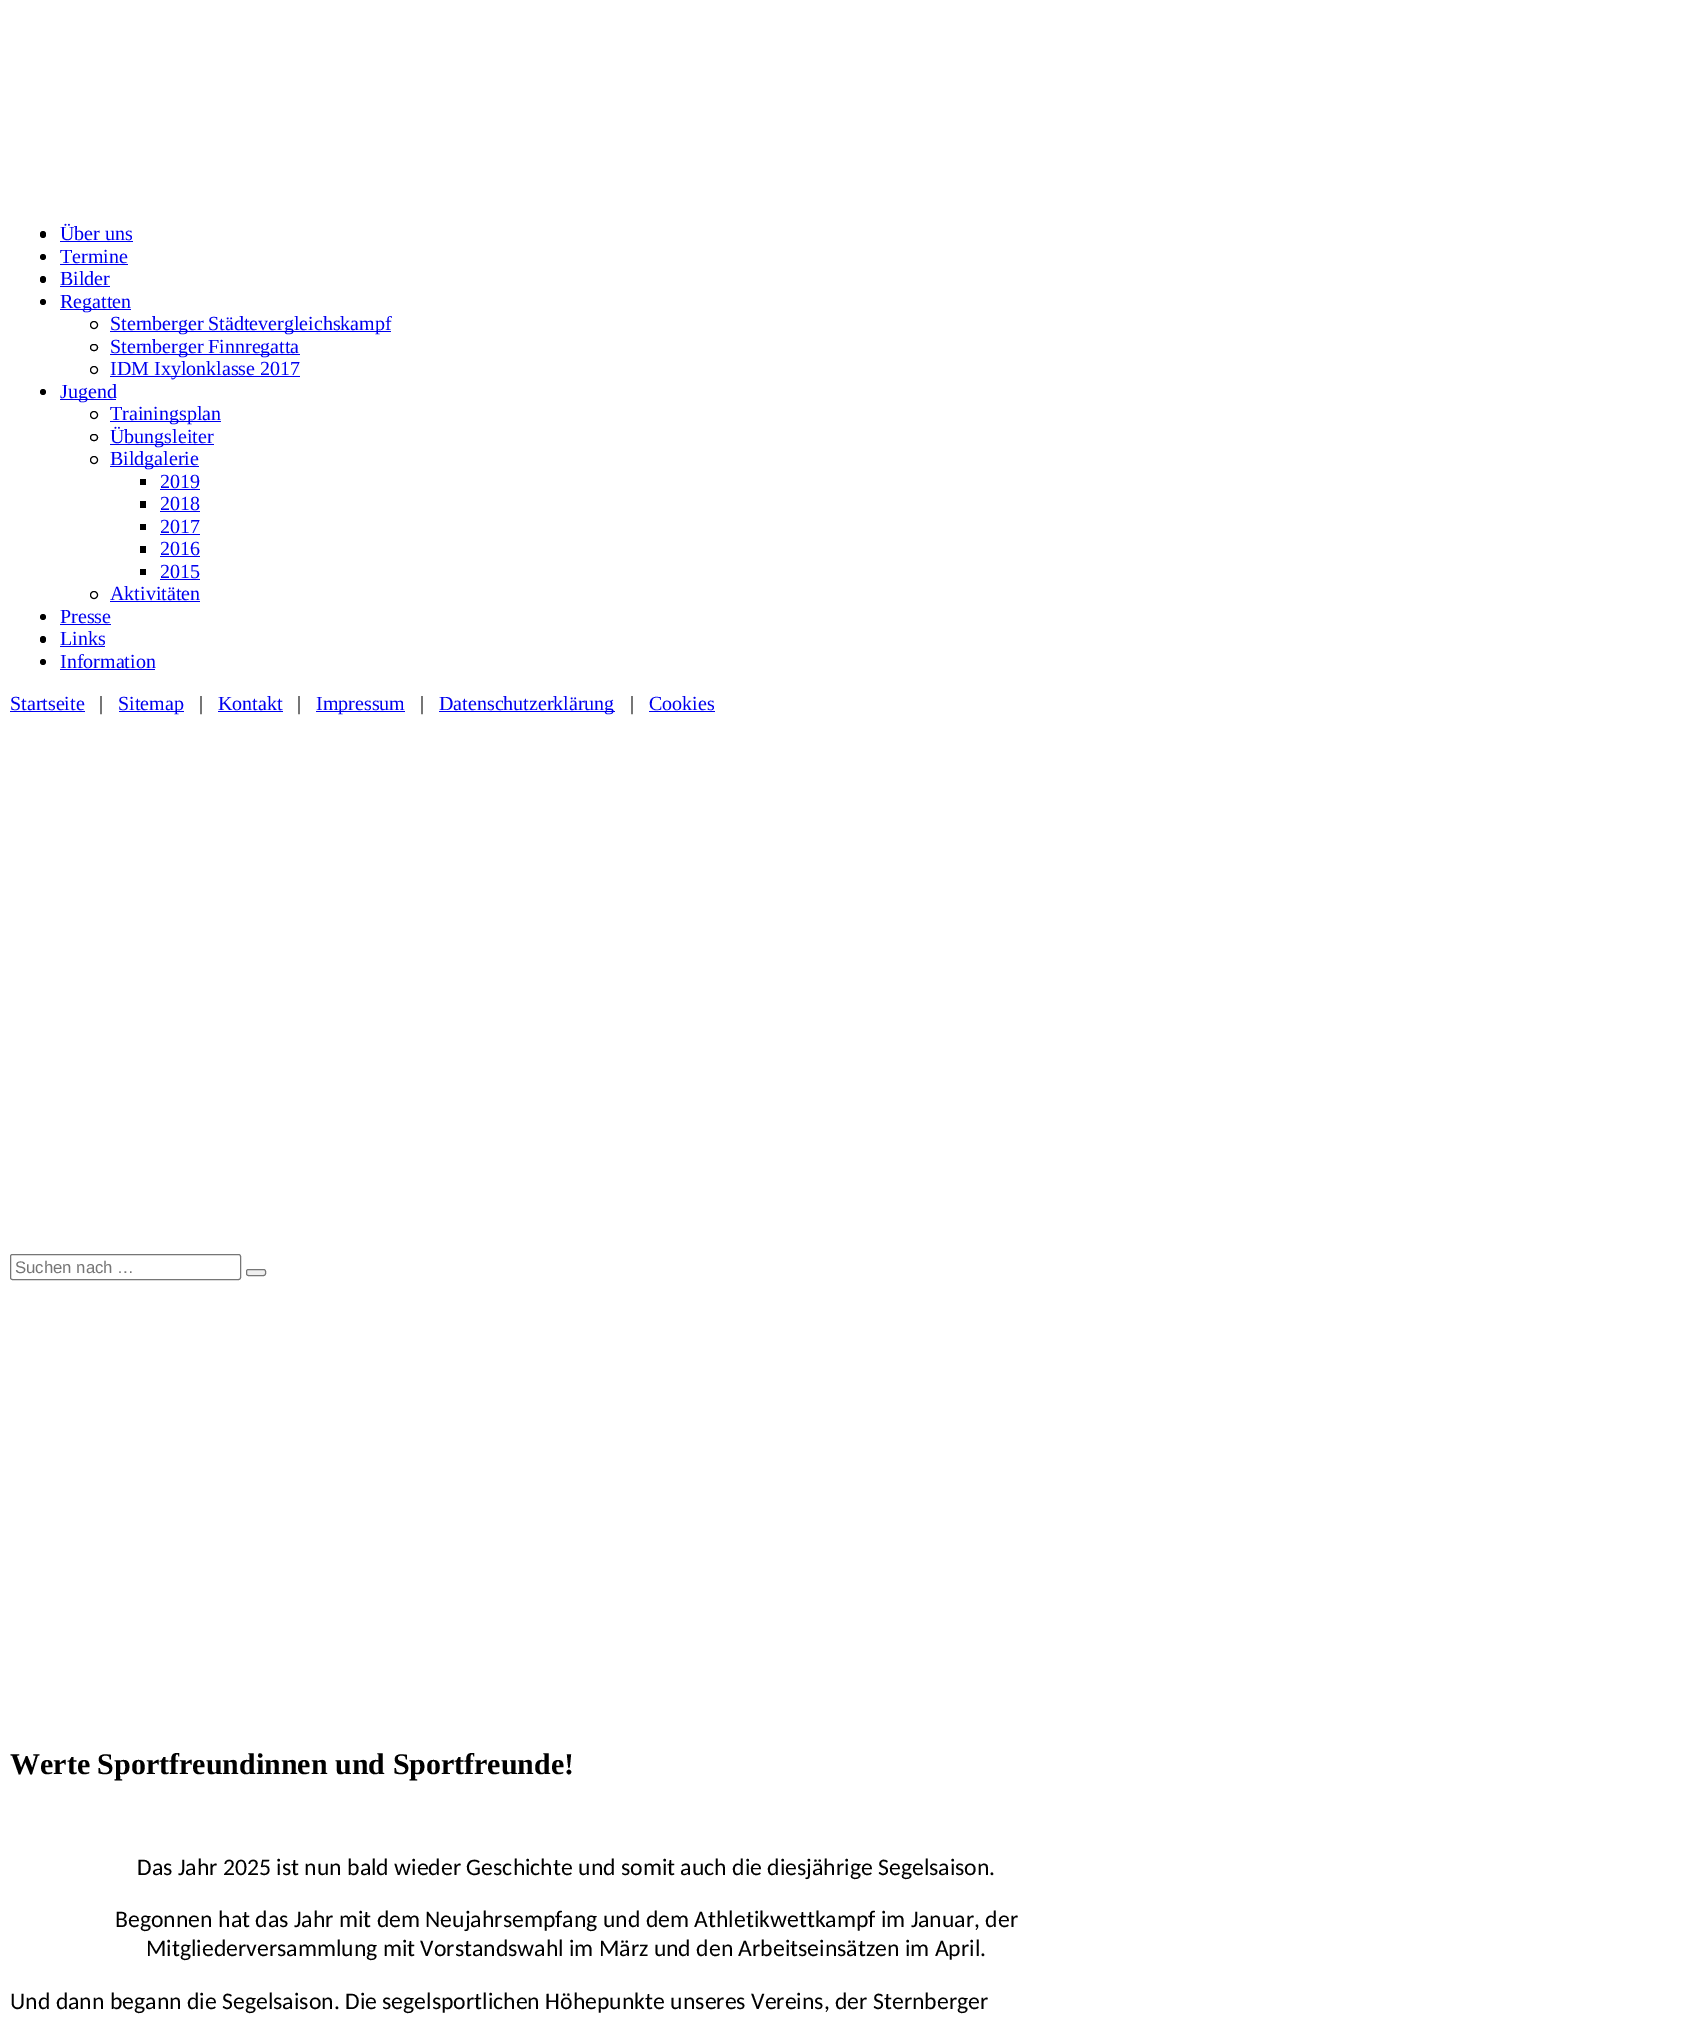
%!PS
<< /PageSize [1688 2020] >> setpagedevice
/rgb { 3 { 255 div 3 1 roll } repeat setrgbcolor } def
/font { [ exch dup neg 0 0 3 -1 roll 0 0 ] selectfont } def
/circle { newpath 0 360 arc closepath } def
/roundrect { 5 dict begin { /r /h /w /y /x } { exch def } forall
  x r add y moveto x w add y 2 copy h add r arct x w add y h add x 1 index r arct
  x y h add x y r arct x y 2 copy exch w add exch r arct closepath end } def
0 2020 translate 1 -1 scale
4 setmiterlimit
255 255 255 rgb
0 0 1688 2020 rectfill
0 0 0 rgb
40 231 6 7 3 roundrect fill
0 0 238 rgb
60 241 73 1 rectfill
0 0 0 rgb
43 257 3 circle fill
0 0 238 rgb
60 264 68 1 rectfill
0 0 0 rgb
40 276 6 7 3 roundrect fill
0 0 238 rgb
60 286 50 1 rectfill
0 0 0 rgb
43 302 3 circle fill
0 0 238 rgb
60 309 71 1 rectfill
0 0 0 rgb
94 325 3.5 circle stroke
0 0 238 rgb
110 331 281 1 rectfill
0 0 0 rgb
90.5 344.5 7 6 3 roundrect stroke
0 0 238 rgb
110 354 190 1 rectfill
0 0 0 rgb
94 370 3.5 circle stroke
0 0 238 rgb
110 376 190 1 rectfill
0 0 0 rgb
43 392 3 circle fill
0 0 238 rgb
60 399 56 1 rectfill
0 0 0 rgb
94 415 3.5 circle stroke
0 0 238 rgb
110 421 111 1 rectfill
0 0 0 rgb
90.5 434.5 7 6 3 roundrect stroke
0 0 238 rgb
110 444 104 1 rectfill
0 0 0 rgb
94 460 3.5 circle stroke
[
  [110 466 89 1 0 0 238]
  [140 479 6 6 0 0 0]
  [160 489 40 1 0 0 238]
  [140 501 6 7 0 0 0]
  [160 511 40 1 0 0 238]
  [140 524 6 6 0 0 0]
  [160 534 40 1 0 0 238]
  [140 546 6 7 0 0 0]
  [160 556 40 1 0 0 238]
  [140 569 6 6 0 0 0]
  [160 579 40 1 0 0 238]
] { aload pop rgb rectfill } forall
0 0 0 rgb
94 595 3.5 circle stroke
0 0 238 rgb
110 601 90 1 rectfill
0 0 0 rgb
43 617 3 circle fill
0 0 238 rgb
60 624 51 1 rectfill
0 0 0 rgb
40 636 6 7 3 roundrect fill
0 0 238 rgb
60 646 45 1 rectfill
0 0 0 rgb
43 662 3 circle fill
[
  [60 669 95 1 0 0 238]
  [10 711 75 1 0 0 238]
  [119 711 65 1 0 0 238]
  [218 711 65 1 0 0 238]
  [316 711 89 1 0 0 238]
  [439 711 176 1 0 0 238]
  [649 711 66 1 0 0 238]
] { aload pop rgb rectfill } forall
118 118 118 rgb
10.5 1254.5 230 25 2 roundrect stroke
239 239 239 rgb
246.5 1269.5 19 6 2 roundrect gsave fill grestore
118 118 118 rgb
stroke
/LiberationSerif-Regular 20 font
0 0 238 rgb
[
  [(Über uns) 60 240]
  [(Termine) 60 263]
  [(Bilder) 60 285]
  [(Regatten) 60 308]
  [(Sternberger Städtevergleichskampf) 110 330]
  [(Sternberger Finnregatta) 110 353]
  [(IDM Ixylonklasse 2017) 110 375]
  [(Jugend) 60 398]
  [(Trainingsplan) 110 420]
  [(Übungsleiter) 110 443]
  [(Bildgalerie) 110 465]
  [(2019) 160 488]
  [(2018) 160 510]
  [(2017) 160 533]
  [(2016) 160 555]
  [(2015) 160 578]
  [(Aktivitäten) 110 600]
  [(Presse) 60 623]
  [(Links) 60 645]
  [(Information) 60 668]
  [(Startseite) 10 710]
] { aload pop moveto show } forall
0 0 0 rgb
99 710 moveto (|) show
0 0 238 rgb
118 710 moveto (Sitemap) show
0 0 0 rgb
199 710 moveto (|) show
0 0 238 rgb
218 710 moveto (Kontakt) show
0 0 0 rgb
297 710 moveto (|) show
0 0 238 rgb
316 710 moveto (Impressum) show
0 0 0 rgb
420 710 moveto (|) show
0 0 238 rgb
439 710 moveto (Datenschutzerklärung) show
0 0 0 rgb
630 710 moveto (|) show
0 0 238 rgb
649 710 moveto (Cookies) show
/LiberationSans-Regular 16.75 font
117 117 117 rgb
15 1273 moveto (Suchen nach …) show
/LiberationSerif-Bold 30 font
0 0 0 rgb
10 1774 moveto (Werte Sportfreundinnen und Sportfreunde!) show
/Carlito-Regular 23.75 font
[
  [(Das Jahr 2025 ist nun bald wieder Geschichte und somit auch die diesjährige Segelsaison.) 137 1875]
  [(Begonnen hat das Jahr mit dem Neujahrsempfang und dem Athletikwettkampf im Januar, der) 115 1927]
  [(Mitgliederversammlung mit Vorstandswahl im März und den Arbeitseinsätzen im April.) 146 1956]
  [(Und dann begann die Segelsaison. Die segelsportlichen Höhepunkte unseres Vereins, der Sternberger) 10 2009]
] { aload pop moveto show } forall
showpage
